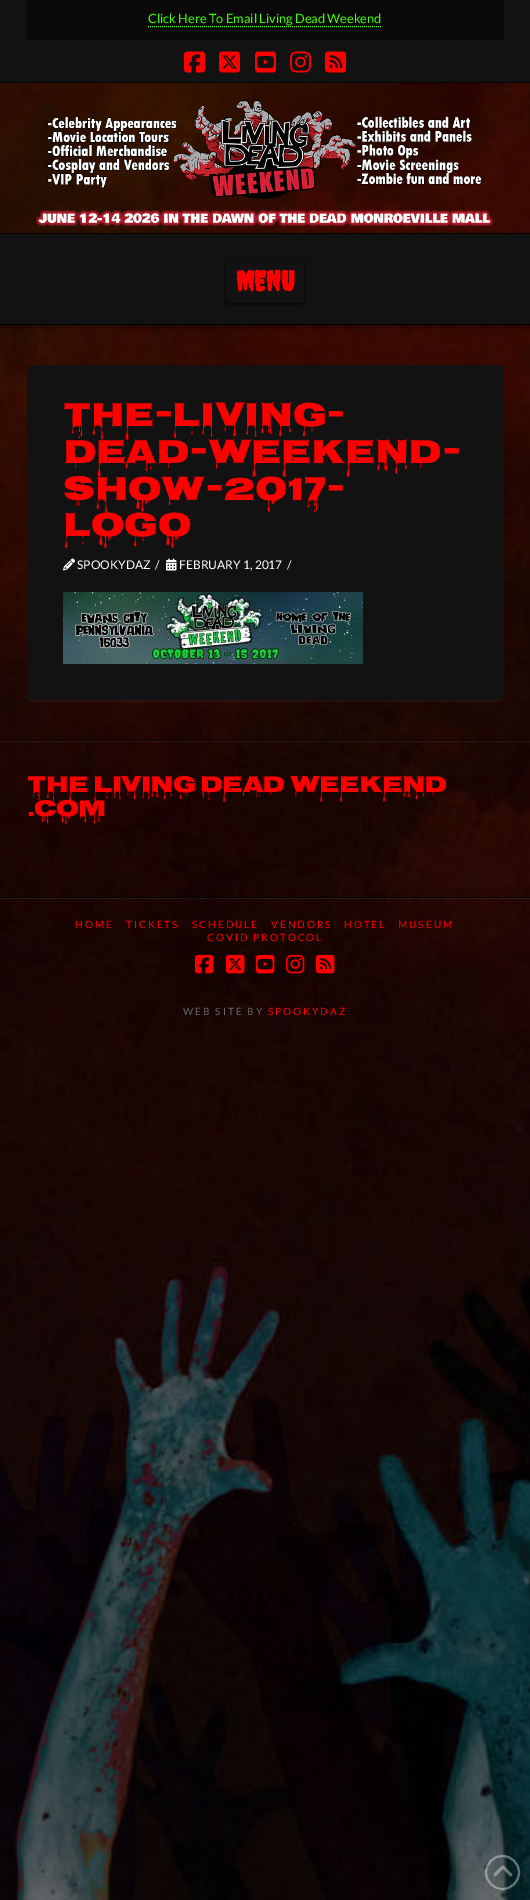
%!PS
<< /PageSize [530 1900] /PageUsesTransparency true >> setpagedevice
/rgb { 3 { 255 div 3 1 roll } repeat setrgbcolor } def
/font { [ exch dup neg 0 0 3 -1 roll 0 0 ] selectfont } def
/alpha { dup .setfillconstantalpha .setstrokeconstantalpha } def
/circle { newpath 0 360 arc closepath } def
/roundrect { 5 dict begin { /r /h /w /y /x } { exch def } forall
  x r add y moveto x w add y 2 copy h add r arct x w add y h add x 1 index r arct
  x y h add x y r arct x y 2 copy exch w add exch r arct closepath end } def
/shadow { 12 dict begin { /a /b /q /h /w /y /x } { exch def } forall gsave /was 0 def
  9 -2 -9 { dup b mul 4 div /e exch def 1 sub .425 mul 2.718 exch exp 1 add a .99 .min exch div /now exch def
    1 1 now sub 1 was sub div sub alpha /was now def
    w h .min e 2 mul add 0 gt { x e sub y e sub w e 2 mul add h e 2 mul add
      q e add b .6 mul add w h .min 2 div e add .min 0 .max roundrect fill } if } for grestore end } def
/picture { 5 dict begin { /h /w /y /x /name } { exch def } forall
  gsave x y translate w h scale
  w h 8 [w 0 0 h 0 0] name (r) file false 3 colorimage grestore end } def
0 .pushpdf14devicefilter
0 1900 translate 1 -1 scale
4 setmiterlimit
255 255 255 rgb
0 0 530 1900 rectfill
18 18 18 rgb
0 0 530 82 rectfill
5 5 5 rgb
0 82 530 1 rectfill
9 9 9 rgb
27 0 moveto 504 0 lineto 504 36 lineto 504 38 502 40 500 40 curveto 31 40 lineto 29 40 27 38 27 36 curveto closepath fill
64 255 0 rgb
[1 1] 0 setdash
148 26.5 moveto 382 26.5 lineto stroke
(img/1.rgb) 184 51 21 22 picture
(img/2.rgb) 219 51 21 22 picture
(img/3.rgb) 255 51 21 22 picture
(img/4.rgb) 290 51 21 22 picture
(img/5.rgb) 325 51 21 22 picture
(img/16.rgb) 0 83 530 1817 picture
5 5 5 rgb
0 233 530 1 rectfill
(img/6.rgb) 35 100 459 127 picture
0 0 0 rgb
0 236 530 91 0 3 0.47 shadow
18 18 18 rgb
0 234 530 90 rectfill
0 0 0 rgb
0 324 530 1 rectfill
226 261 78 43 4 2 1 shadow
18 18 18 rgb
226 260 78 43 4 roundrect fill
255 255 255 rgb
29 370 473 331 2 1 0.07 shadow
18 18 18 rgb
27 365 477 335 4 roundrect fill
(img/7.rgb) 63 558 12 13 picture
(img/8.rgb) 166 558 11 13 picture
(img/9.rgb) 63 592 300 72 picture
0.07 alpha
[
  [0 741 530 1 255 255 255]
] { aload pop rgb rectfill } forall
0.75 alpha
[
  [0 740 530 1 0 0 0]
] { aload pop rgb rectfill } forall
0.07 alpha
[
  [0 898 530 1 255 255 255]
] { aload pop rgb rectfill } forall
0.75 alpha
[
  [0 897 530 1 0 0 0]
] { aload pop rgb rectfill } forall
1 alpha
(img/10.rgb) 195 954 19 20 picture
(img/11.rgb) 226 954 19 20 picture
(img/12.rgb) 256 954 19 20 picture
(img/13.rgb) 286 954 19 20 picture
(img/14.rgb) 316 954 19 20 picture
0.38 alpha
255 255 255 rgb
2 setlinewidth
[] 0 setdash
502.5 1872.5 16.5 circle stroke
1 alpha
(img/15.rgb) 493 1865 20 12 picture
/Lato-Regular 12.75 font
64 255 0 rgb
148 23 moveto (Click Here To Email Living Dead Weekend) show
/Creepster-Bold 28 font
255 0 0 rgb
236 291 moveto (MENU) show
/Nosifer-Regular 35 font
63 426 moveto -0.6 0 (the-living-) ashow
63 463 moveto -0.6 0 (dead-weekend-) ashow
63 500 moveto -0.6 0 (show-2017-) ashow
63 536 moveto -0.6 0 (logo) ashow
/Lato-Regular 12 font
255 255 255 rgb
[
  [(SPOOKYDAZ) 77 569]
  [(/) 155 569]
  [(FEBRUARY 1, 2017) 179 569]
  [(/) 287 569]
] { aload pop moveto show } forall
/Nosifer-Regular 24 font
255 0 0 rgb
27 792 moveto -0.9 0 (The Living Dead Weekend) ashow
27 816 moveto -0.9 0 (.com) ashow
/Lato-Regular 10 font
75 928 moveto 2 0 (HOME) ashow
126 928 moveto 2 0 (TICKETS) ashow
192 928 moveto 2 0 (SCHEDULE) ashow
271 928 moveto 2 0 (VENDORS) ashow
344 928 moveto 2 0 (HOTEL) ashow
398 928 moveto 2 0 (MUSEUM) ashow
207 941 moveto 2 0 (COVID PROTOCOL) ashow
102 102 102 rgb
183 1015 moveto 2 0 (WEB SITE BY) ashow
255 0 0 rgb
268 1015 moveto 2 0 (SPOOKYDAZ) ashow
.poppdf14devicefilter showpage
